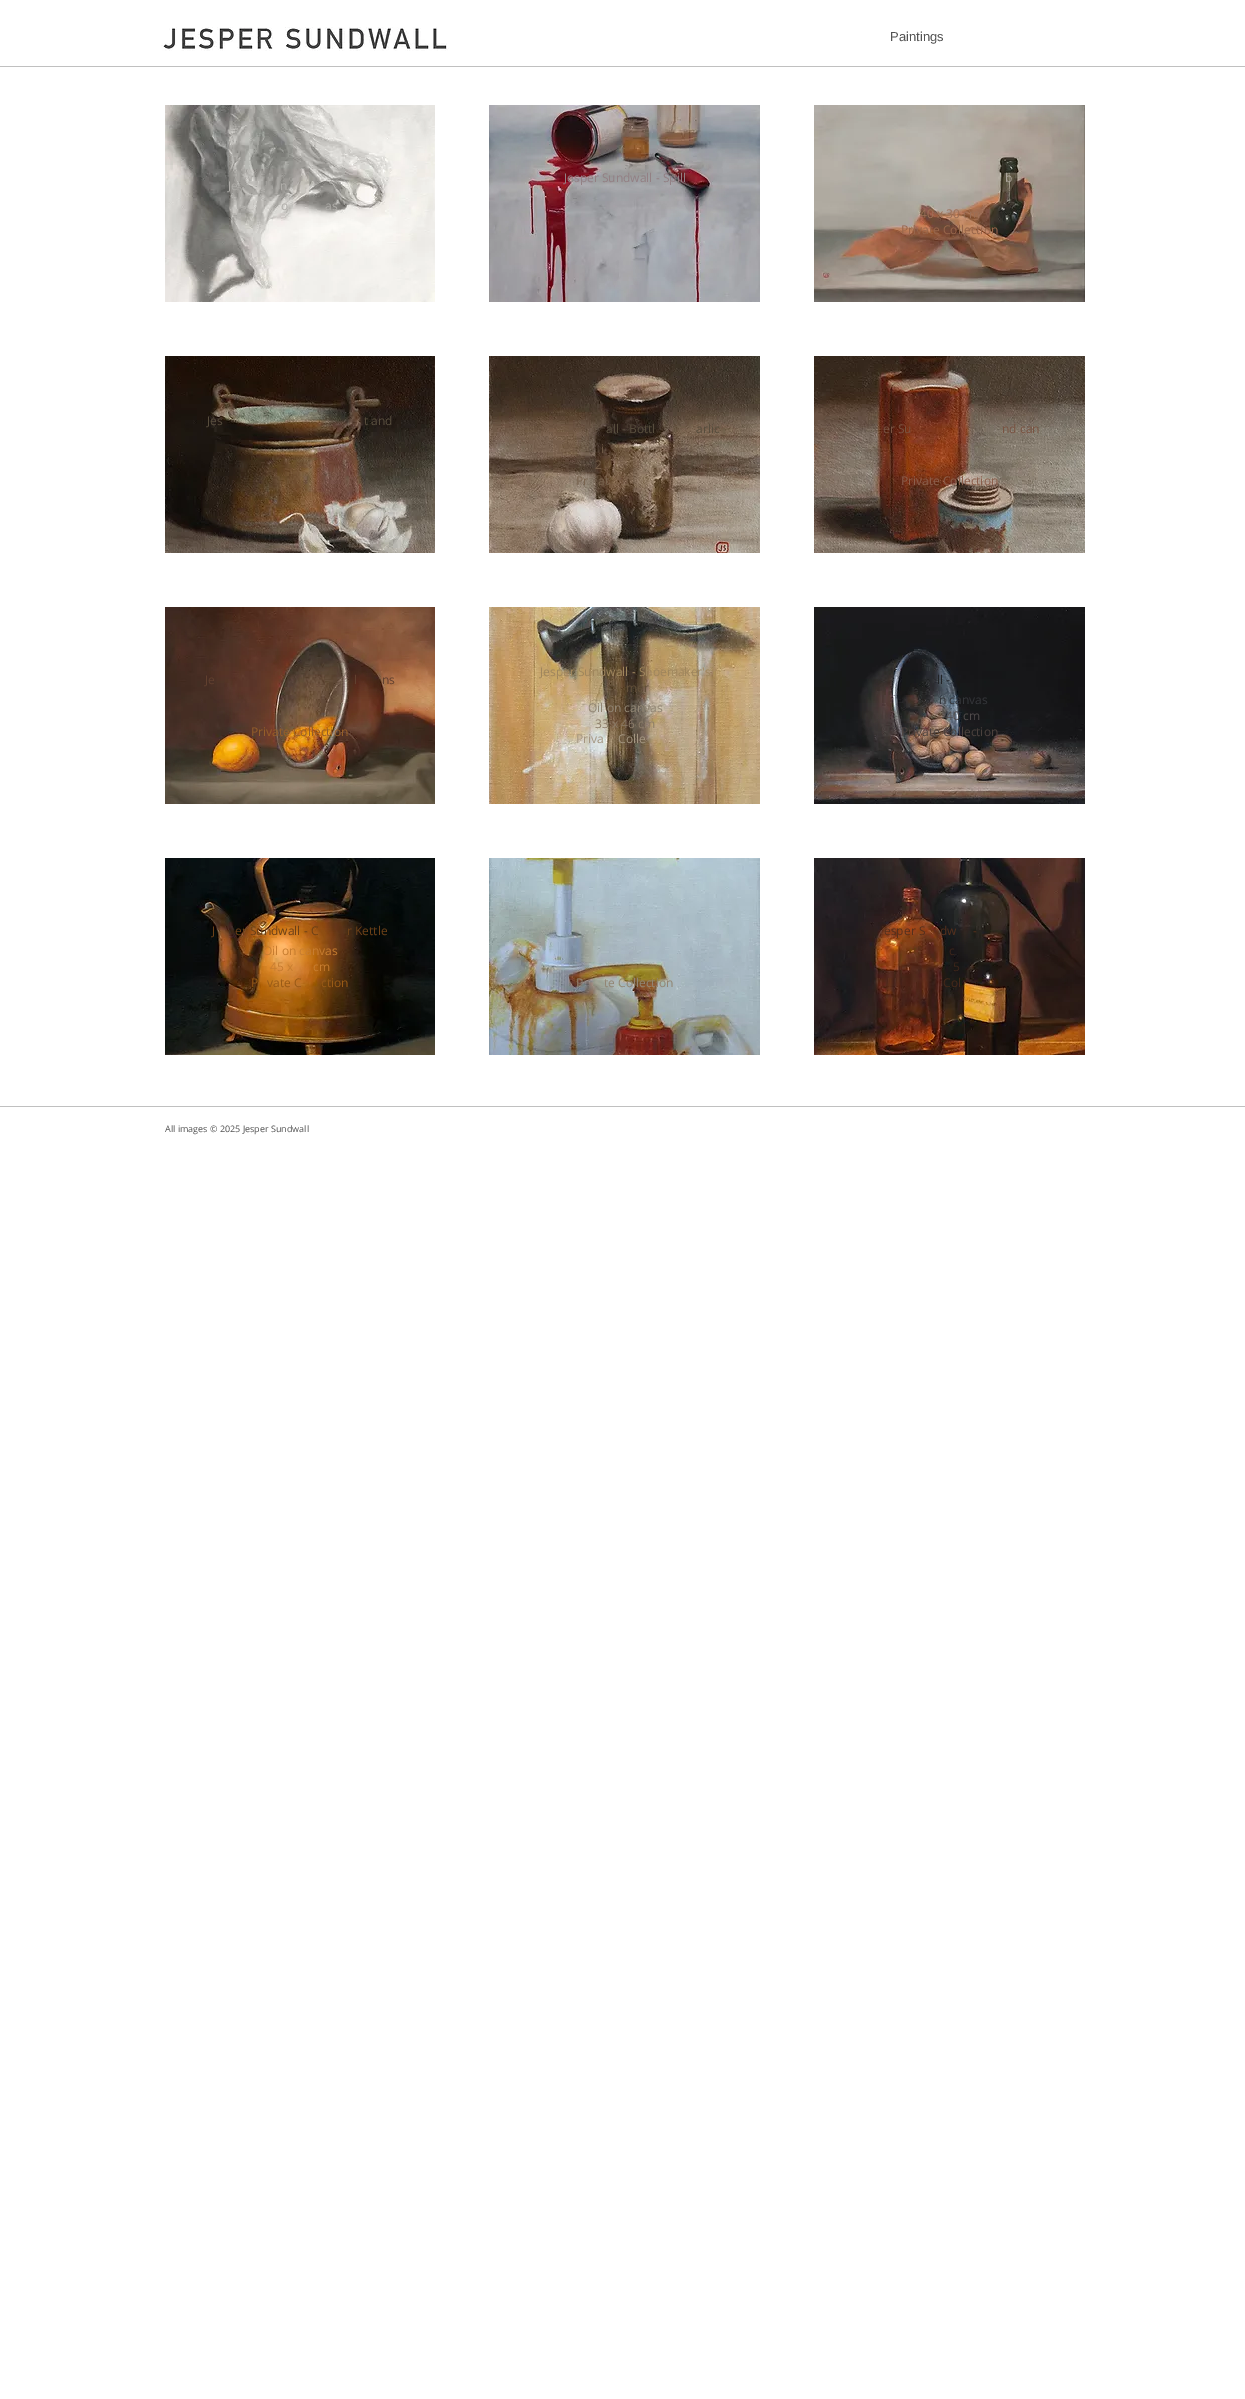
%!PS
<< /PageSize [1245 2399] >> setpagedevice
/rgb { 3 { 255 div 3 1 roll } repeat setrgbcolor } def
/font { [ exch dup neg 0 0 3 -1 roll 0 0 ] selectfont } def
/picture { 5 dict begin { /h /w /y /x /name } { exch def } forall
  gsave x y translate w h scale
  w h 8 [w 0 0 h 0 0] name (r) file false 3 colorimage grestore end } def
0 2399 translate 1 -1 scale
4 setmiterlimit
255 255 255 rgb
0 0 1245 2399 rectfill
(img/1.rgb) 161 27 288 24 picture
192 192 192 rgb
0 66 1245 1 rectfill
(img/2.rgb) 165 105 270 197 picture
(img/3.rgb) 489 105 271 197 picture
(img/4.rgb) 814 105 271 197 picture
(img/5.rgb) 165 356 270 197 picture
(img/6.rgb) 489 356 271 197 picture
(img/7.rgb) 814 356 271 197 picture
(img/8.rgb) 165 607 270 197 picture
(img/9.rgb) 489 607 271 197 picture
(img/10.rgb) 814 607 271 197 picture
(img/11.rgb) 165 858 270 197 picture
(img/12.rgb) 489 858 271 197 picture
(img/13.rgb) 814 858 271 197 picture
0 1106 1245 1 rectfill
/LiberationSans-Regular 13 font
83 83 83 rgb
890 41 moveto (Paintings) show
/OpenSans-Regular 12 font
175 173 169 rgb
[
  [(Je) 228 190]
  [(n) 280 190]
  [(-) 320 190]
  [(o) 281 210]
  [(as) 325 210]
] { aload pop moveto show } forall
147 128 132 rgb
564 182 moveto (Jesper Sundwall - Spill) show
171 164 154 rgb
1005 182 moveto (b) show
157 112 87 rgb
920 218 moveto (40 x 30 cm) show
152 102 75 rgb
901 234 moveto (Private Collection) show
87 77 61 rgb
[
  [(Jes) 207 425]
  [(t and) 364 425]
  [(all - Bottl) 606 433]
  [(arlic) 696 433]
] { aload pop moveto show } forall
108 88 69 rgb
601 453 moveto (i) show
115 92 71 rgb
595 469 moveto (2) show
121 100 79 rgb
576 485 moveto (Pr) show
598 485 moveto (at) show
121 83 65 rgb
883 433 moveto (er Su) show
1002 433 moveto (nd can) show
139 95 76 rgb
901 485 moveto (Private Collection) show
97 64 47 rgb
[
  [(Je) 205 684]
  [(l) 354 684]
  [(ns) 382 684]
] { aload pop moveto show } forall
149 95 41 rgb
251 736 moveto (Private Collection) show
159 134 93 rgb
540 676 moveto (Jesper Sundwall - Shoemaker's) show
98 80 58 rgb
626 692 moveto (mer) show
146 134 116 rgb
588 712 moveto (Oil on canvas) show
140 124 104 rgb
595 728 moveto (33 x 46 cm) show
164 150 129 rgb
576 743 moveto (Priva) show
618 743 moveto (Colle) show
35 36 39 rgb
937 684 moveto (ll -) show
52 54 58 rgb
939 704 moveto (n canvas) show
80 75 75 rgb
946 720 moveto (40 cm) show
75 65 61 rgb
901 736 moveto (Private Collection) show
109 65 24 rgb
[
  [(J) 212 935]
  [(er Sundwall - C) 235 935]
  [(r Kettle) 347 935]
] { aload pop moveto show } forall
199 125 48 rgb
[
  [(Oil on canvas) 263 955]
  [(45 x) 270 971]
  [(cm) 313 971]
] { aload pop moveto show } forall
153 90 22 rgb
[
  [(P) 251 987]
  [(vate C) 267 987]
  [(ction) 321 987]
] { aload pop moveto show } forall
146 134 116 rgb
576 987 moveto (P) show
604 987 moveto (te Collection) show
86 48 29 rgb
[
  [(esper S) 884 935]
  [(dw) 940 935]
  [(-) 973 935]
] { aload pop moveto show } forall
61 37 26 rgb
949 955 moveto (c) show
953 971 moveto (5) show
70 41 25 rgb
943 987 moveto (Col) show
/OpenSans-Regular 9 font
83 83 83 rgb
165 1132 moveto (All images © 2025 Jesper Sundwall) show
showpage
